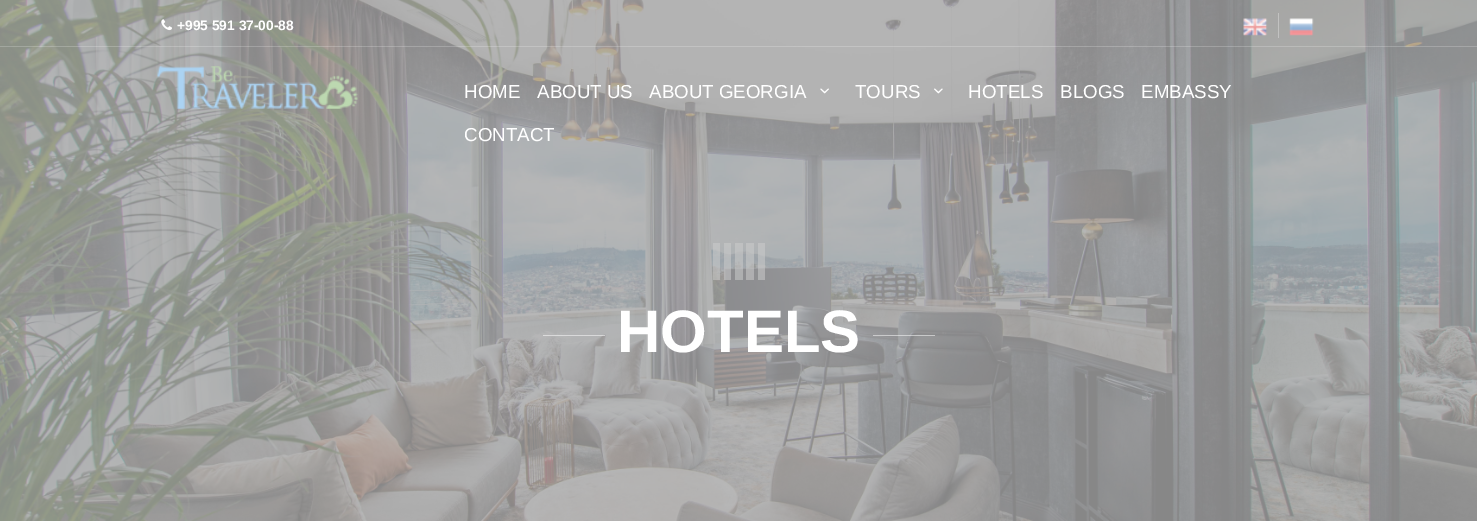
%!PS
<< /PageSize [1477 521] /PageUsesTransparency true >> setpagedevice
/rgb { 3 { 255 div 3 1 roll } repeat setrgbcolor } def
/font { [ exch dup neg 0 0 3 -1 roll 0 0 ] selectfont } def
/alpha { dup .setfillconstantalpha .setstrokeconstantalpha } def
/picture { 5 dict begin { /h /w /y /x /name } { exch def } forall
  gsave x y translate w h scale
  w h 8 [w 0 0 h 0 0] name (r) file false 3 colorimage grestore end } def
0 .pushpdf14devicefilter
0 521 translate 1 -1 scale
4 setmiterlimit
255 255 255 rgb
0 0 1477 521 rectfill
(img/1.rgb) 0 0 1477 521 picture
0.2 alpha
0 46 1477 1 rectfill
1 alpha
(img/2.rgb) 161 19 11 12 picture
(img/3.rgb) 1243 18 25 18 picture
0.3 alpha
1278 13 1 25 rectfill
1 alpha
(img/4.rgb) 1289 18 25 18 picture
(img/5.rgb) 157 66 201 43 picture
(img/6.rgb) 820 88 9 6 picture
(img/7.rgb) 934 88 9 6 picture
0.53 alpha
[
  [713 243 7 37 204 204 204]
  [724 243 7 37 204 204 204]
  [735 243 8 37 204 204 204]
  [746 243 8 37 204 204 204]
  [758 243 7 37 204 204 204]
] { aload pop rgb rectfill } forall
0.5 alpha
[
  [543 335 62 1 255 255 255]
  [873 335 62 1 255 255 255]
] { aload pop rgb rectfill } forall
/LiberationSans-Bold 13.75 font
1 alpha
177 30 moveto (+995 591 37-00-88) show
/LiberationSans-Regular 18.75 font
[
  [(HOME) 464 98]
  [(ABOUT US) 537 98]
  [(ABOUT GEORGIA) 649 98]
  [(TOURS) 855 98]
  [(HOTELS) 968 98]
  [(BLOGS) 1060 98]
  [(EMBASSY) 1141 98]
  [(CONTACT) 464 141]
] { aload pop moveto show } forall
/LiberationSans-Bold 60 font
617 352 moveto (HOTELS) show
.poppdf14devicefilter showpage
